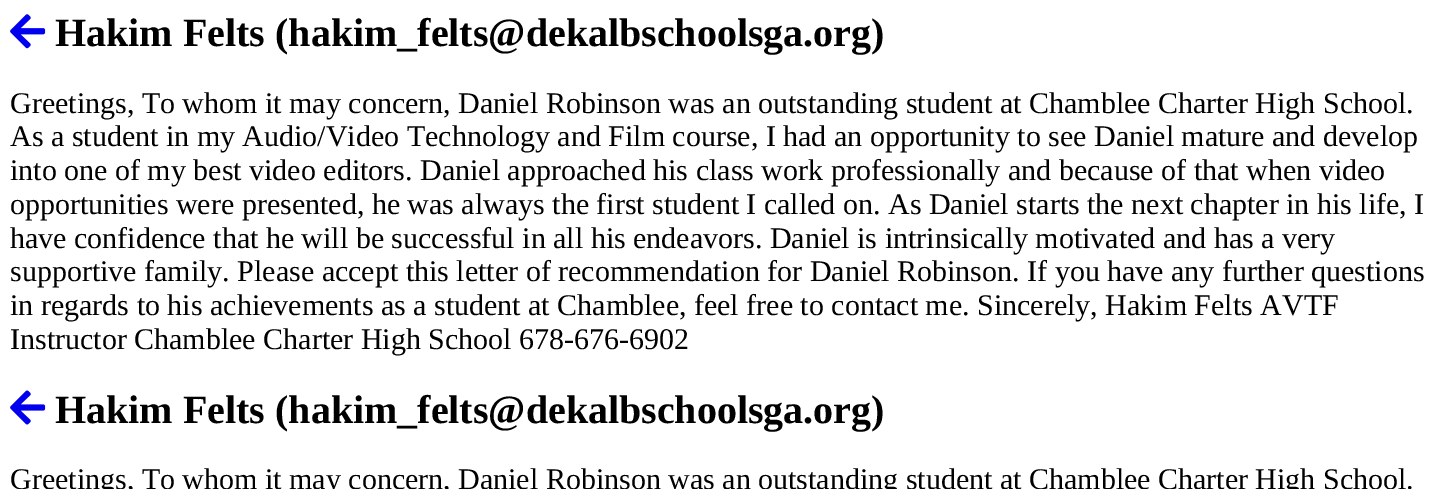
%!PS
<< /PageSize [1447 489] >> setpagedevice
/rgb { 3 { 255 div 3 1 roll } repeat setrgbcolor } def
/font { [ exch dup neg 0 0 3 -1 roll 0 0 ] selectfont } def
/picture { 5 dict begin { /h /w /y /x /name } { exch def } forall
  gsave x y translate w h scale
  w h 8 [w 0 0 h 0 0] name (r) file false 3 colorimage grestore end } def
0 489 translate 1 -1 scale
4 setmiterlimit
255 255 255 rgb
0 0 1447 489 rectfill
(img/1.rgb) 10 14 36 35 picture
(img/2.rgb) 10 390 36 35 picture
/LiberationSerif-Bold 40 font
0 0 0 rgb
55 46 moveto (Hakim Felts \(hakim_felts@dekalbschoolsga.org\)) show
/LiberationSerif-Regular 30 font
[
  [(Greetings, To whom it may concern, Daniel Robinson was an outstanding student at Chamblee Charter High School.) 10 113]
  [(As a student in my Audio/Video Technology and Film course, I had an opportunity to see Daniel mature and develop) 10 146]
  [(into one of my best video editors. Daniel approached his class work professionally and because of that when video) 10 180]
  [(opportunities were presented, he was always the first student I called on. As Daniel starts the next chapter in his life, I) 10 214]
  [(have confidence that he will be successful in all his endeavors. Daniel is intrinsically motivated and has a very) 10 248]
  [(supportive family. Please accept this letter of recommendation for Daniel Robinson. If you have any further questions) 10 281]
  [(in regards to his achievements as a student at Chamblee, feel free to contact me. Sincerely, Hakim Felts AVTF) 10 315]
  [(Instructor Chamblee Charter High School 678-676-6902) 10 349]
] { aload pop moveto show } forall
/LiberationSerif-Bold 40 font
55 423 moveto (Hakim Felts \(hakim_felts@dekalbschoolsga.org\)) show
/LiberationSerif-Regular 30 font
10 489 moveto (Greetings, To whom it may concern, Daniel Robinson was an outstanding student at Chamblee Charter High School.) show
showpage
